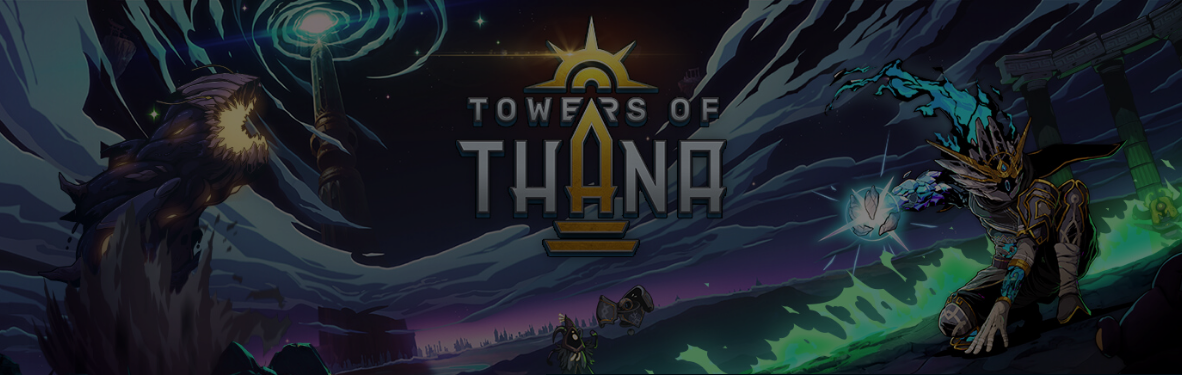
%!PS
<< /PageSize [1182 375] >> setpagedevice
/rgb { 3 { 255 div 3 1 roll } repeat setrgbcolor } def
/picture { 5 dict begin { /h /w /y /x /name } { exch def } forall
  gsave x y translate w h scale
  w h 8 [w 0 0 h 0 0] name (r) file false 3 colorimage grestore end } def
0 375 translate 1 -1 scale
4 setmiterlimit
255 255 255 rgb
0 0 1182 375 rectfill
(img/1.rgb) 0 0 1182 375 picture
0 11 19 rgb
546 374 636 1 rectfill
showpage
